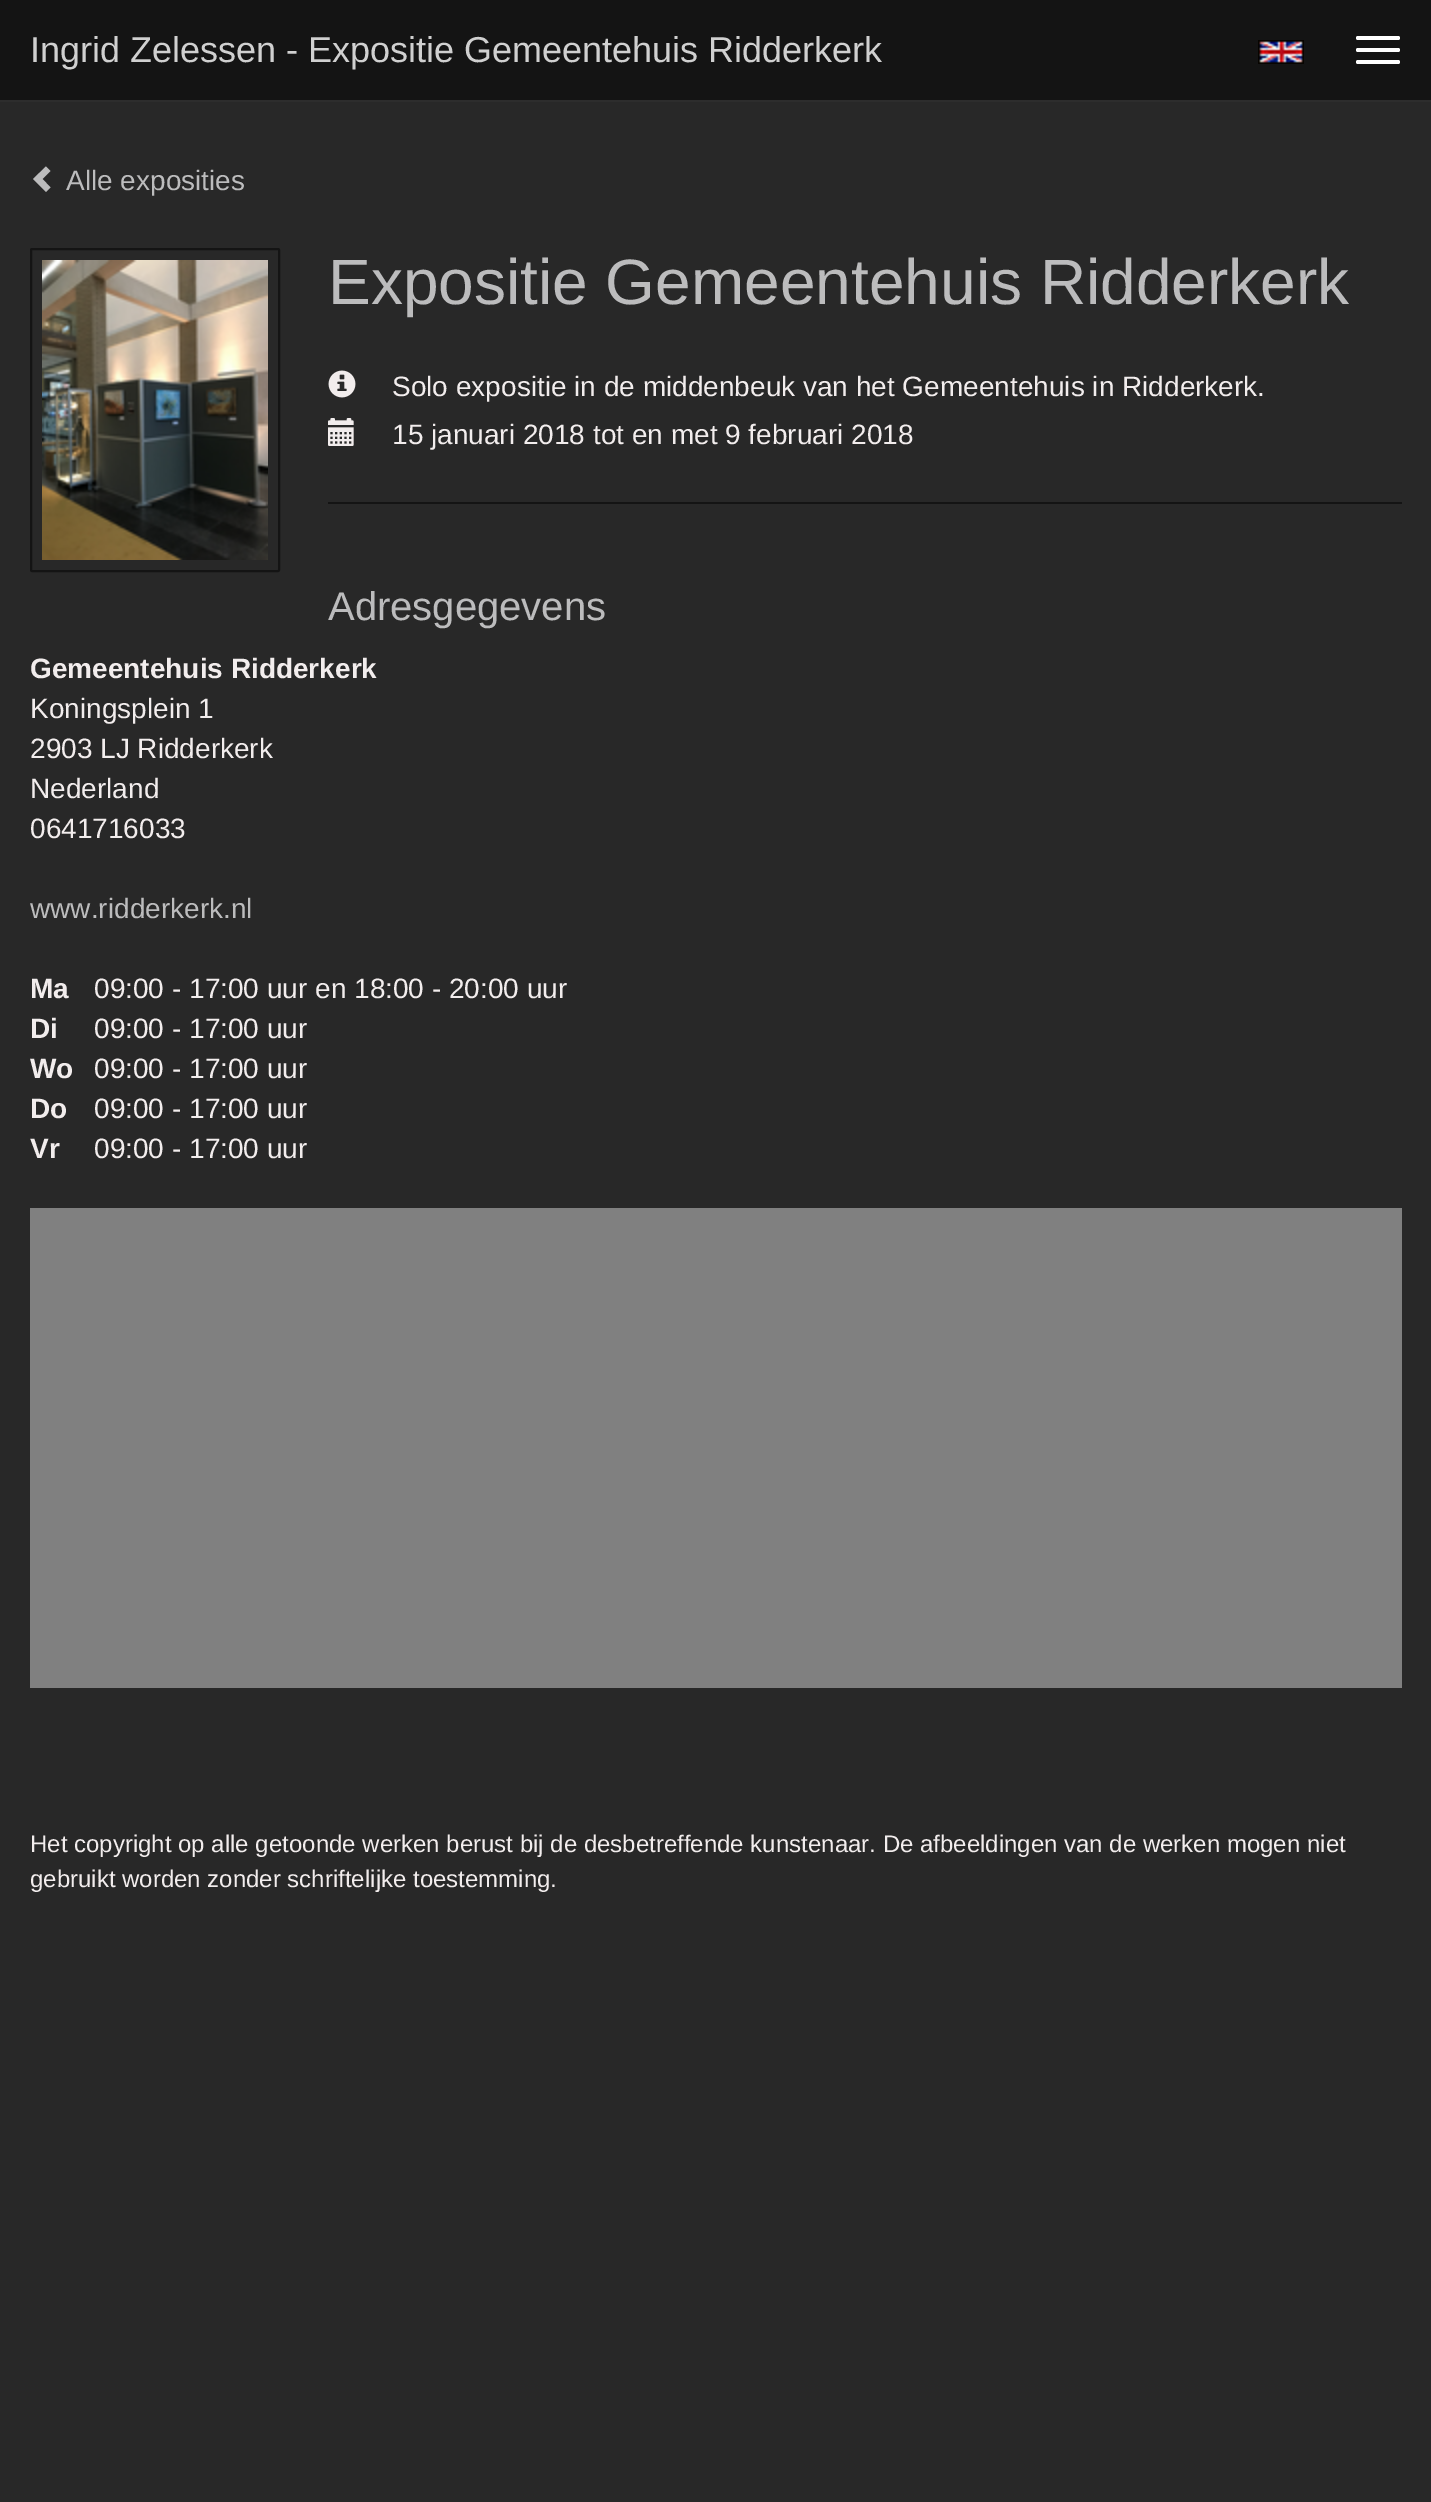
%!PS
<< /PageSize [1431 2502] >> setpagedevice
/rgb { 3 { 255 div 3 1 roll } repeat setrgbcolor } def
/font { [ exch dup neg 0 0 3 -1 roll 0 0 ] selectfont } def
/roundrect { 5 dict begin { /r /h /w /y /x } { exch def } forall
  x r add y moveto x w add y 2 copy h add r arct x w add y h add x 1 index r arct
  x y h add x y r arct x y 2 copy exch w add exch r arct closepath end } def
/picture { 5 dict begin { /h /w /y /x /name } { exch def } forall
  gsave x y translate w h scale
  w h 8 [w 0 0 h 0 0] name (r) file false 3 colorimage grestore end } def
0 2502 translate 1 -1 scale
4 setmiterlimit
40 40 40 rgb
0 0 1431 2502 rectfill
20 20 20 rgb
0 0 1431 100 rectfill
45 45 45 rgb
0 100 1431 2 rectfill
255 255 255 rgb
1356 36 44 4 2 roundrect fill
1356 48 44 4 2 roundrect fill
1356 60 44 4 2 roundrect fill
(img/1.rgb) 1258 40 46 24 picture
188 188 189 rgb
50.5 171 moveto 42.5 179 lineto 50.5 187.5 lineto 46 192 lineto 33 179 lineto 46 166.5 lineto closepath fill
20 20 20 rgb
2 setlinewidth
31 249 248 322 1 roundrect stroke
(img/2.rgb) 42 260 226 300 picture
(img/3.rgb) 328 370 28 28 picture
(img/4.rgb) 328 418 26 28 picture
328 502 1074 2 rectfill
128 128 128 rgb
30 1208 1372 480 rectfill
/LiberationSans-Regular 36 font
208 208 208 rgb
30 62 moveto (Ingrid Zelessen - Expositie Gemeentehuis Ridderkerk) show
/LiberationSans-Regular 28 font
188 188 189 rgb
66 190 moveto (Alle exposities) show
/LiberationSans-Regular 64 font
328 304 moveto (Expositie Gemeentehuis Ridderkerk) show
/LiberationSans-Regular 28 font
242 237 237 rgb
392 396 moveto (Solo expositie in de middenbeuk van het Gemeentehuis in Ridderkerk.) show
392 444 moveto (15 januari 2018 tot en met 9 februari 2018) show
/LiberationSans-Regular 40 font
188 188 189 rgb
328 620 moveto (Adresgegevens) show
/LiberationSans-Bold 28 font
242 237 237 rgb
30 678 moveto (Gemeentehuis Ridderkerk) show
/LiberationSans-Regular 28 font
[
  [(Koningsplein 1) 30 718]
  [(2903 LJ Ridderkerk) 30 758]
  [(Nederland) 30 798]
  [(0641716033) 30 838]
] { aload pop moveto show } forall
188 188 189 rgb
30 918 moveto (www.ridderkerk.nl) show
/LiberationSans-Bold 28 font
242 237 237 rgb
30 998 moveto (Ma) show
/LiberationSans-Regular 28 font
94 998 moveto (09:00 - 17:00 uur en 18:00 - 20:00 uur) show
/LiberationSans-Bold 28 font
30 1038 moveto (Di) show
/LiberationSans-Regular 28 font
94 1038 moveto (09:00 - 17:00 uur) show
/LiberationSans-Bold 28 font
30 1078 moveto (Wo) show
/LiberationSans-Regular 28 font
94 1078 moveto (09:00 - 17:00 uur) show
/LiberationSans-Bold 28 font
30 1118 moveto (Do) show
/LiberationSans-Regular 28 font
94 1118 moveto (09:00 - 17:00 uur) show
/LiberationSans-Bold 28 font
30 1158 moveto (Vr) show
/LiberationSans-Regular 28 font
94 1158 moveto (09:00 - 17:00 uur) show
/LiberationSans-Regular 24 font
30 1852 moveto (Het copyright op alle getoonde werken berust bij de desbetreffende kunstenaar. De afbeeldingen van de werken mogen niet) show
30 1887 moveto (gebruikt worden zonder schriftelijke toestemming.) show
showpage
